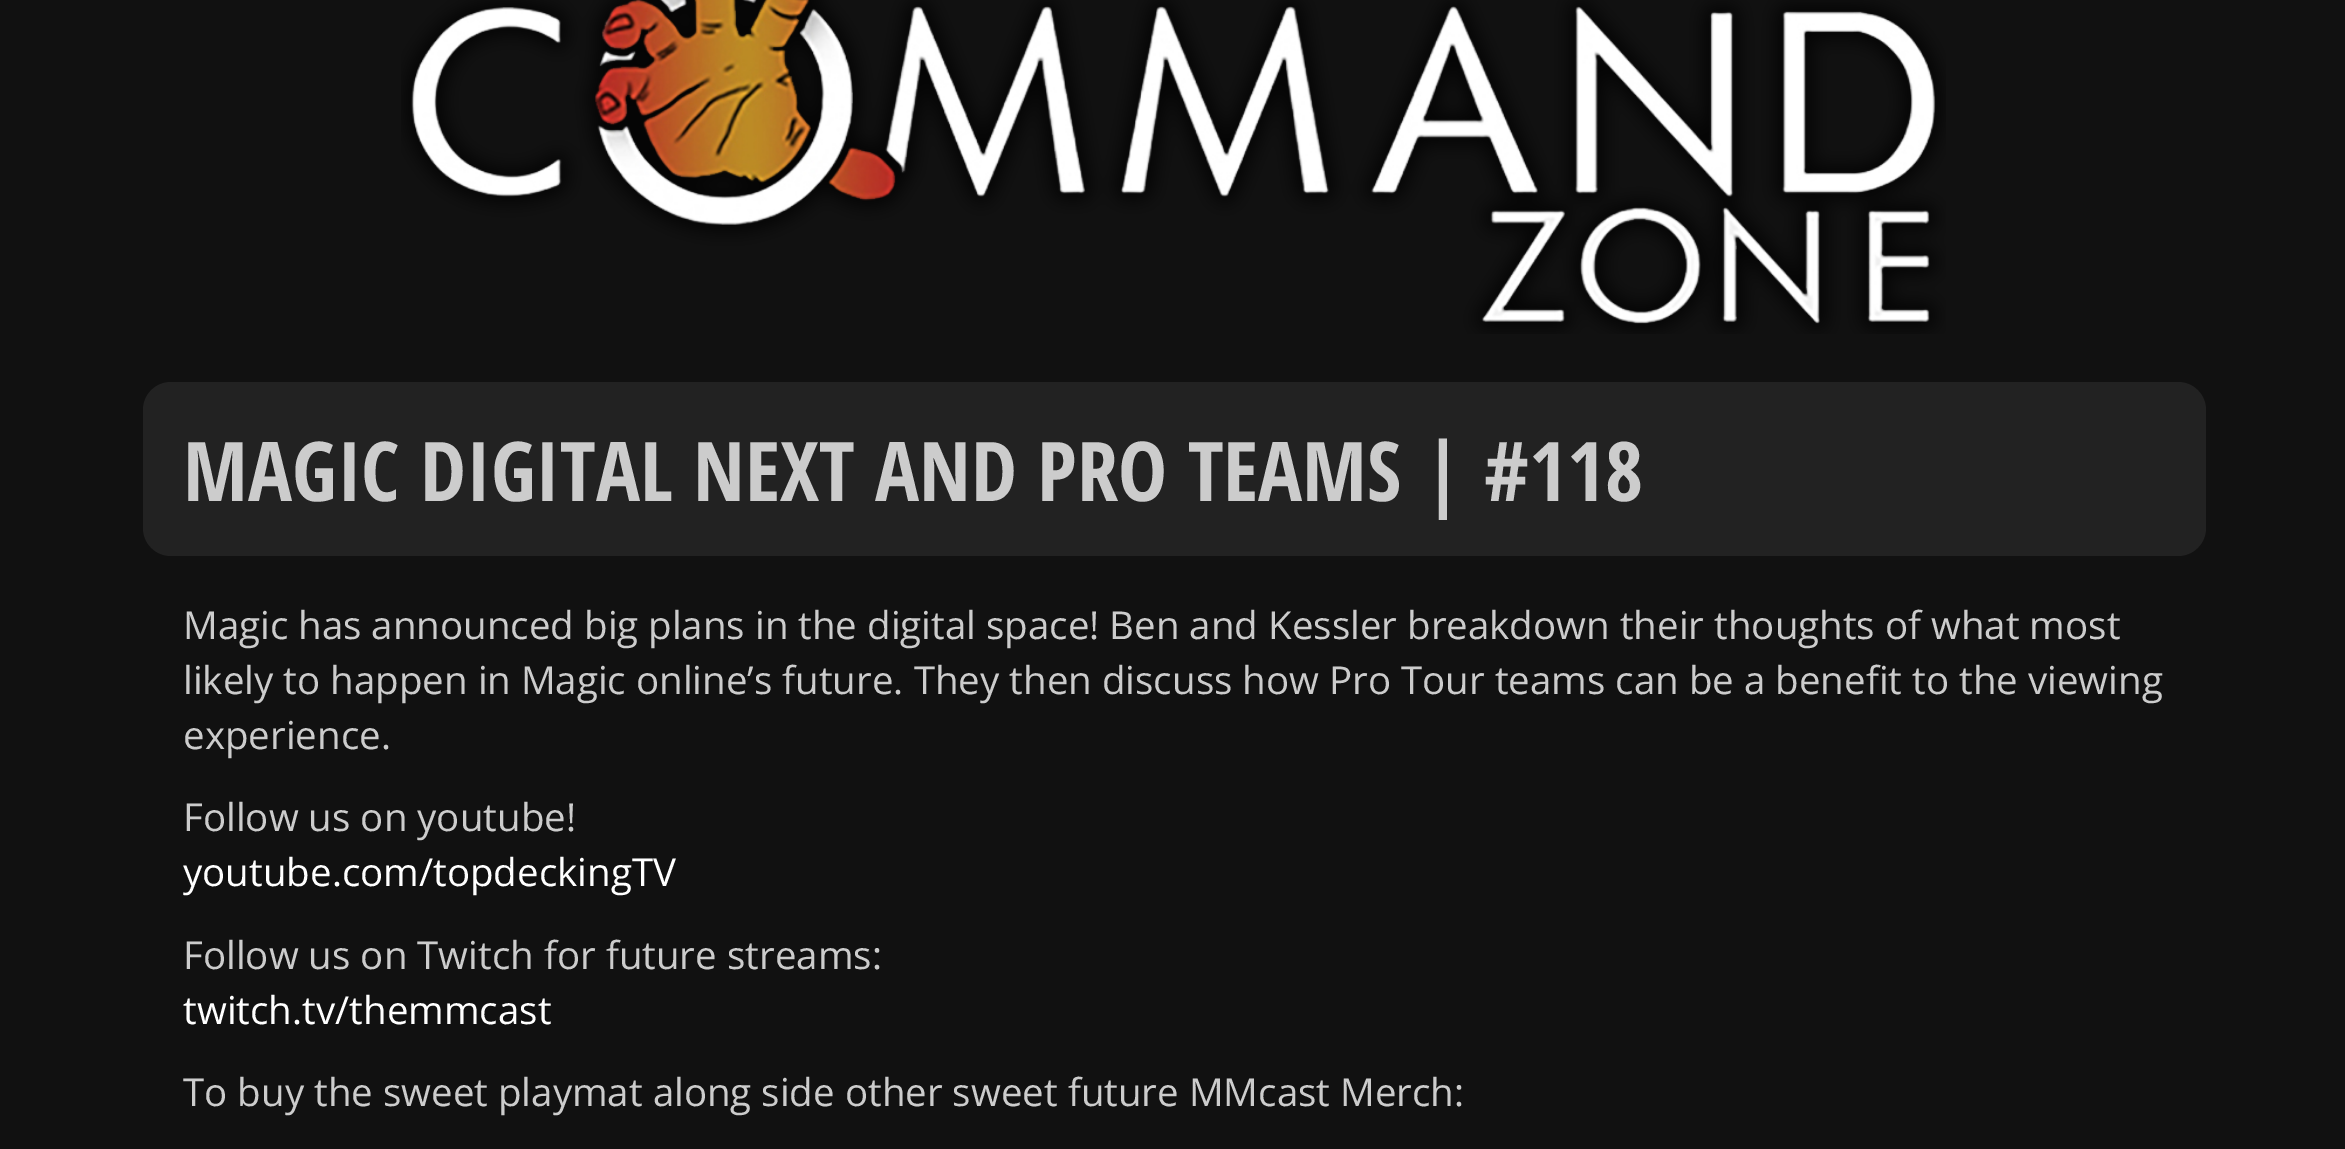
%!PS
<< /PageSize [2345 1149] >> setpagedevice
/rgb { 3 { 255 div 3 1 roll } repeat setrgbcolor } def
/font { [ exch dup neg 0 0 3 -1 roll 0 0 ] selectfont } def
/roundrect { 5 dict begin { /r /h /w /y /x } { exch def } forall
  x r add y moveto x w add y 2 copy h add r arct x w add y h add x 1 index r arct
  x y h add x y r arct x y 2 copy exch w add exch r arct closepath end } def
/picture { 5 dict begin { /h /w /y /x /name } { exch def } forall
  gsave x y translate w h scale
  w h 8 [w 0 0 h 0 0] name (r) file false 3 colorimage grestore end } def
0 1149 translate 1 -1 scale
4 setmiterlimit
17 17 17 rgb
0 0 2345 1149 rectfill
(img/1.rgb) 401 0 1545 334 picture
34 34 34 rgb
143 382 2063 174 28 roundrect fill
/OpenSansCondensed-Bold 82.5 font
204 204 204 rgb
183 501 moveto (MAGIC DIGITAL NEXT AND PRO TEAMS | #118) show
/OpenSans-Regular 38.5 font
[
  [(Magic has announced big plans in the digital space! Ben and Kessler breakdown their thoughts of what most) 183 639]
  [(likely to happen in Magic online’s future. They then discuss how Pro Tour teams can be a benefit to the viewing) 183 694]
  [(experience.) 183 749]
  [(Follow us on youtube!) 183 831]
] { aload pop moveto show } forall
255 255 255 rgb
183 886 moveto (youtube.com/topdeckingTV) show
204 204 204 rgb
183 969 moveto (Follow us on Twitch for future streams:) show
255 255 255 rgb
183 1024 moveto (twitch.tv/themmcast) show
204 204 204 rgb
183 1106 moveto (To buy the sweet playmat along side other sweet future MMcast Merch:) show
showpage
